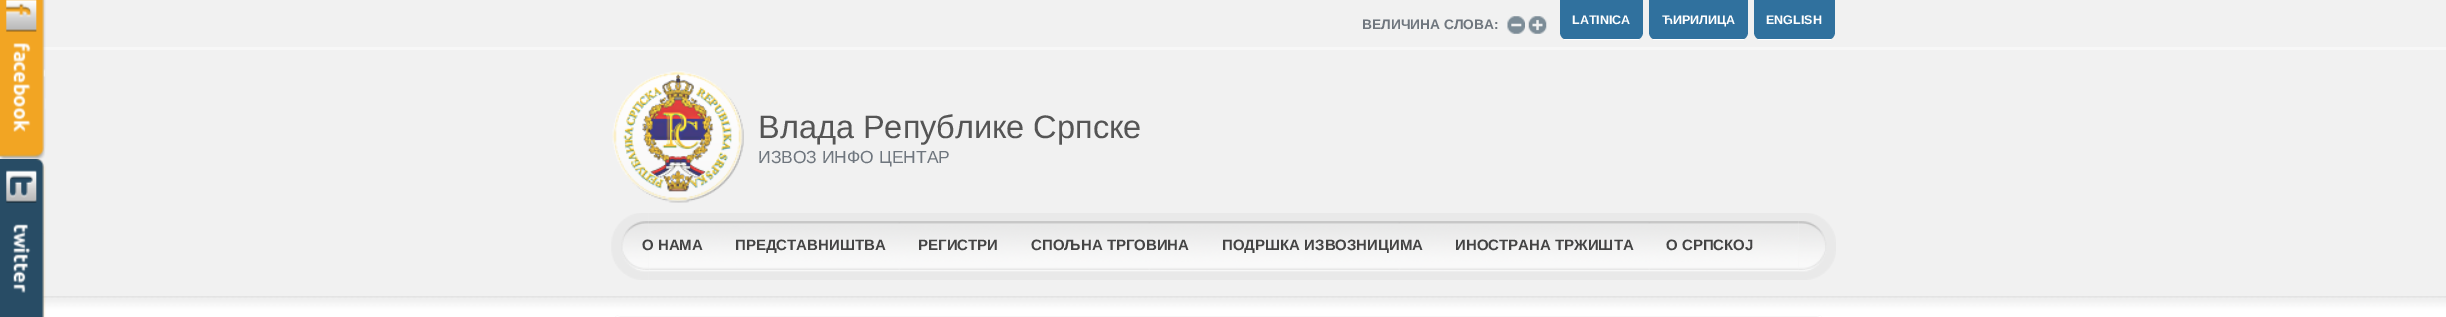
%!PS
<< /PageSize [2446 317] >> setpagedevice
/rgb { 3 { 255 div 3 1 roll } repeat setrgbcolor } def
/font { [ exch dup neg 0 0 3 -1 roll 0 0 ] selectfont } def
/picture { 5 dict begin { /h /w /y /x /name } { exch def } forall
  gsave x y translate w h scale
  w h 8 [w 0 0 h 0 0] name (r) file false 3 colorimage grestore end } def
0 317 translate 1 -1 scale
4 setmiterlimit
241 241 241 rgb
0 0 2446 317 rectfill
247 247 247 rgb
42 47 2404 3 rectfill
(img/1.rgb) 0 0 46 159 picture
(img/9.rgb) 42 296 2404 21 picture
(img/2.rgb) 0 159 46 158 picture
(img/3.rgb) 1507 16 18 18 picture
(img/4.rgb) 1528 16 19 18 picture
48 113 158 rgb
1560 0 moveto 1643 0 lineto 1643 32 lineto 1643 36.5 1639.5 40 1635 40 curveto 1568 40 lineto 1563.5 40 1560 36.5 1560 32 curveto closepath fill
255 255 255 rgb
1564 39 75 1 rectfill
48 113 158 rgb
1649 0 moveto 1748 0 lineto 1748 32 lineto 1748 36.5 1744.5 40 1740 40 curveto 1657 40 lineto 1652.5 40 1649 36.5 1649 32 curveto closepath fill
255 255 255 rgb
1653 39 91 1 rectfill
48 113 158 rgb
1754 0 moveto 1835 0 lineto 1835 32 lineto 1835 36.5 1831.5 40 1827 40 curveto 1762 40 lineto 1757.5 40 1754 36.5 1754 32 curveto closepath fill
255 255 255 rgb
1758 39 73 1 rectfill
(img/5.rgb) 612 71 132 132 picture
(img/6.rgb) 611 213 38 67 picture
(img/7.rgb) 1798 213 38 67 picture
(img/8.rgb) 649 213 1150 67 picture
245 245 245 rgb
621 315 moveto 1816 315 lineto 1821.5 315 1826 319.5 1826 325 curveto 1826 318 lineto 611 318 lineto 611 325 lineto 611 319.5 615.5 315 621 315 curveto closepath fill
255 255 255 rgb
1.2 setlinewidth
614.5 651.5 moveto 613 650 612 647.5 612 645 curveto 612 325 lineto 612 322.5 613 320 614.5 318.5 curveto 616.5 316.5 619 315.5 621 315.5 curveto 1816 315.5 lineto 1818.5 315.5 1821 316.5 1823 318.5 curveto stroke
/LiberationSans-Bold 13.75 font
111 118 126 rgb
1362 29 moveto (ВЕЛИЧИНА СЛОВА:) show
/LiberationSans-Bold 12.5 font
255 255 255 rgb
[
  [(LATINICA) 1572 24]
  [(ЋИРИЛИЦА) 1662 24]
  [(ENGLISH) 1766 24]
] { aload pop moveto show } forall
/LiberationSans-Regular 32.5 font
85 85 85 rgb
758 138 moveto (Влада Републике Српске) show
/LiberationSans-Regular 17.5 font
111 118 126 rgb
758 163 moveto (ИЗВОЗ ИНФО ЦЕНТАР) show
/LiberationSans-Bold 15 font
68 68 68 rgb
[
  [(O НАМА) 642 250]
  [(ПРЕДСТАВНИШТВА) 735 250]
  [(РЕГИСТРИ) 918 250]
  [(СПОЉНА ТРГОВИНА) 1031 250]
  [(ПОДРШКА ИЗВОЗНИЦИМА) 1222 250]
  [(ИНОСТРАНА ТРЖИШТА) 1455 250]
  [(O СРПСКОЈ) 1666 250]
] { aload pop moveto show } forall
showpage
